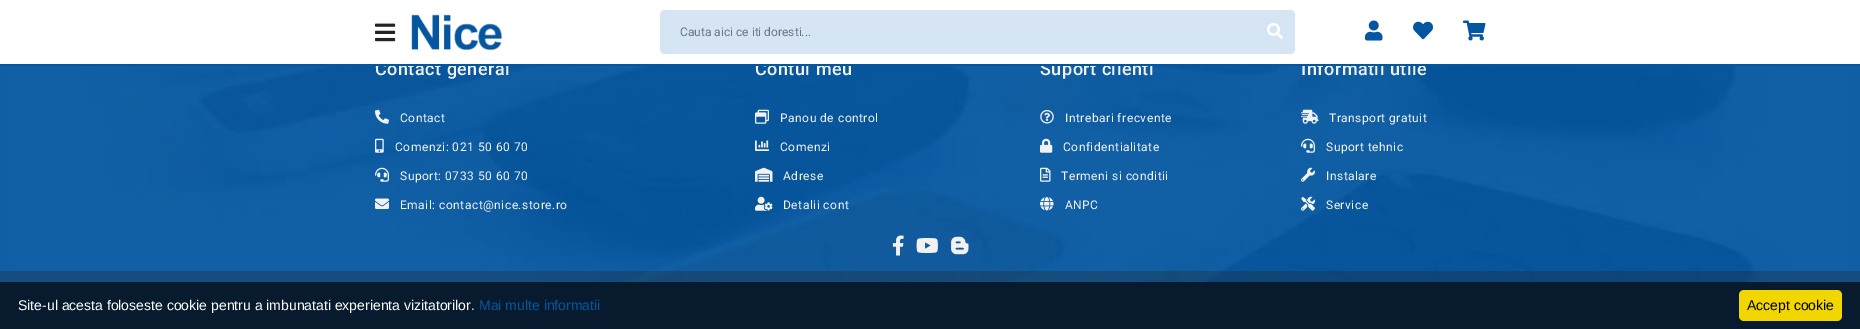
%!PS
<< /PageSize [1860 329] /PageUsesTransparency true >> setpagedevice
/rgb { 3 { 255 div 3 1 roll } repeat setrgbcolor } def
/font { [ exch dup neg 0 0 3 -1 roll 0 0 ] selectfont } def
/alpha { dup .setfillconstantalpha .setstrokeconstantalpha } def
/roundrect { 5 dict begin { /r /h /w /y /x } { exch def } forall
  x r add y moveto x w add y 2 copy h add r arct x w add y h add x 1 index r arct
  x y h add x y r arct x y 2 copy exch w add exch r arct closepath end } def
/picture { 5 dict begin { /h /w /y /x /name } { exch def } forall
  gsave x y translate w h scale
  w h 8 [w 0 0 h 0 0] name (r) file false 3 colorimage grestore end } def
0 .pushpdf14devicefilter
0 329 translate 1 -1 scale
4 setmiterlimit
255 255 255 rgb
0 0 1860 329 rectfill
(img/1.rgb) 375 23 21 19 picture
(img/2.rgb) 411 14 91 36 picture
213 229 244 rgb
665 10 moveto 1255 10 lineto 1255 54 lineto 665 54 lineto 662 54 660 52 660 49 curveto 660 15 lineto 660 12 662 10 665 10 curveto closepath fill
1255 10 moveto 1290 10 lineto 1293 10 1295 12 1295 15 curveto 1295 49 lineto 1295 52 1293 54 1290 54 curveto 1255 54 lineto closepath fill
(img/3.rgb) 1267 23 16 16 picture
(img/4.rgb) 1365 20 18 21 picture
(img/5.rgb) 1413 21 20 19 picture
(img/6.rgb) 1463 20 23 21 picture
(img/7.rgb) 0 66 1860 216 picture
(img/8.rgb) 375 109 14 15 picture
(img/9.rgb) 375 138 9 15 picture
(img/10.rgb) 375 167 14 15 picture
(img/11.rgb) 375 198 14 11 picture
(img/12.rgb) 755 109 14 15 picture
(img/13.rgb) 755 140 14 11 picture
(img/14.rgb) 755 167 18 15 picture
(img/15.rgb) 755 196 18 15 picture
(img/16.rgb) 1040 110 14 14 picture
(img/17.rgb) 1040 138 13 15 picture
(img/18.rgb) 1040 167 11 15 picture
(img/19.rgb) 1040 197 14 14 picture
(img/20.rgb) 1301 109 18 15 picture
(img/21.rgb) 1301 138 14 15 picture
(img/22.rgb) 1301 167 14 15 picture
(img/23.rgb) 1301 196 14 15 picture
(img/24.rgb) 892 235 12 21 picture
(img/25.rgb) 916 238 22 15 picture
(img/26.rgb) 951 236 18 19 picture
0.3 alpha
34 34 34 rgb
0 271 1860 11 rectfill
1 alpha
7 26 46 rgb
0 282 1860 47 rectfill
241 214 0 rgb
1739 290 103 31 5 roundrect fill
/Roboto-Regular 12 font
108 117 125 rgb
680 36 moveto (Cauta aici ce iti doresti...) show
/Roboto-Medium 18 font
242 242 242 rgb
375 75 moveto 0.5 0 (Contact general) ashow
/Roboto-Regular 12 font
400 122 moveto 0.5 0 (Contact) ashow
395 151 moveto 0.5 0 (Comenzi: 021 50 60 70) ashow
400 180 moveto 0.5 0 (Suport: 0733 50 60 70) ashow
400 209 moveto 0.5 0 (Email: contact@nice.store.ro) ashow
/Roboto-Medium 18 font
755 75 moveto 0.5 0 (Contul meu) ashow
/Roboto-Regular 12 font
780 122 moveto 0.5 0 (Panou de control) ashow
780 151 moveto 0.5 0 (Comenzi) ashow
783 180 moveto 0.5 0 (Adrese) ashow
783 209 moveto 0.5 0 (Detalii cont) ashow
/Roboto-Medium 18 font
1040 75 moveto 0.5 0 (Suport clienti) ashow
/Roboto-Regular 12 font
1065 122 moveto 0.5 0 (Intrebari frecvente) ashow
1063 151 moveto 0.5 0 (Confidentialitate) ashow
1061 180 moveto 0.5 0 (Termeni si conditii) ashow
1065 209 moveto 0.5 0 (ANPC) ashow
/Roboto-Medium 18 font
1301 75 moveto 0.5 0 (Informatii utile) ashow
4 86 160 rgb
0 64 1860 2 rectfill
255 255 255 rgb
377 61 1038 3 rectfill
/Roboto-Regular 12 font
242 242 242 rgb
1329 122 moveto 0.5 0 (Transport gratuit) ashow
1326 151 moveto 0.5 0 (Suport tehnic) ashow
1326 180 moveto 0.5 0 (Instalare) ashow
1326 209 moveto 0.5 0 (Service) ashow
/LiberationSans-Regular 14 font
255 255 255 rgb
18 310 moveto (Site-ul acesta foloseste cookie pentru a imbunatati experienta vizitatorilor.) show
4 86 160 rgb
479 310 moveto (Mai multe informatii) show
0 0 0 rgb
1747 310 moveto (Accept cookie) show
.poppdf14devicefilter showpage
